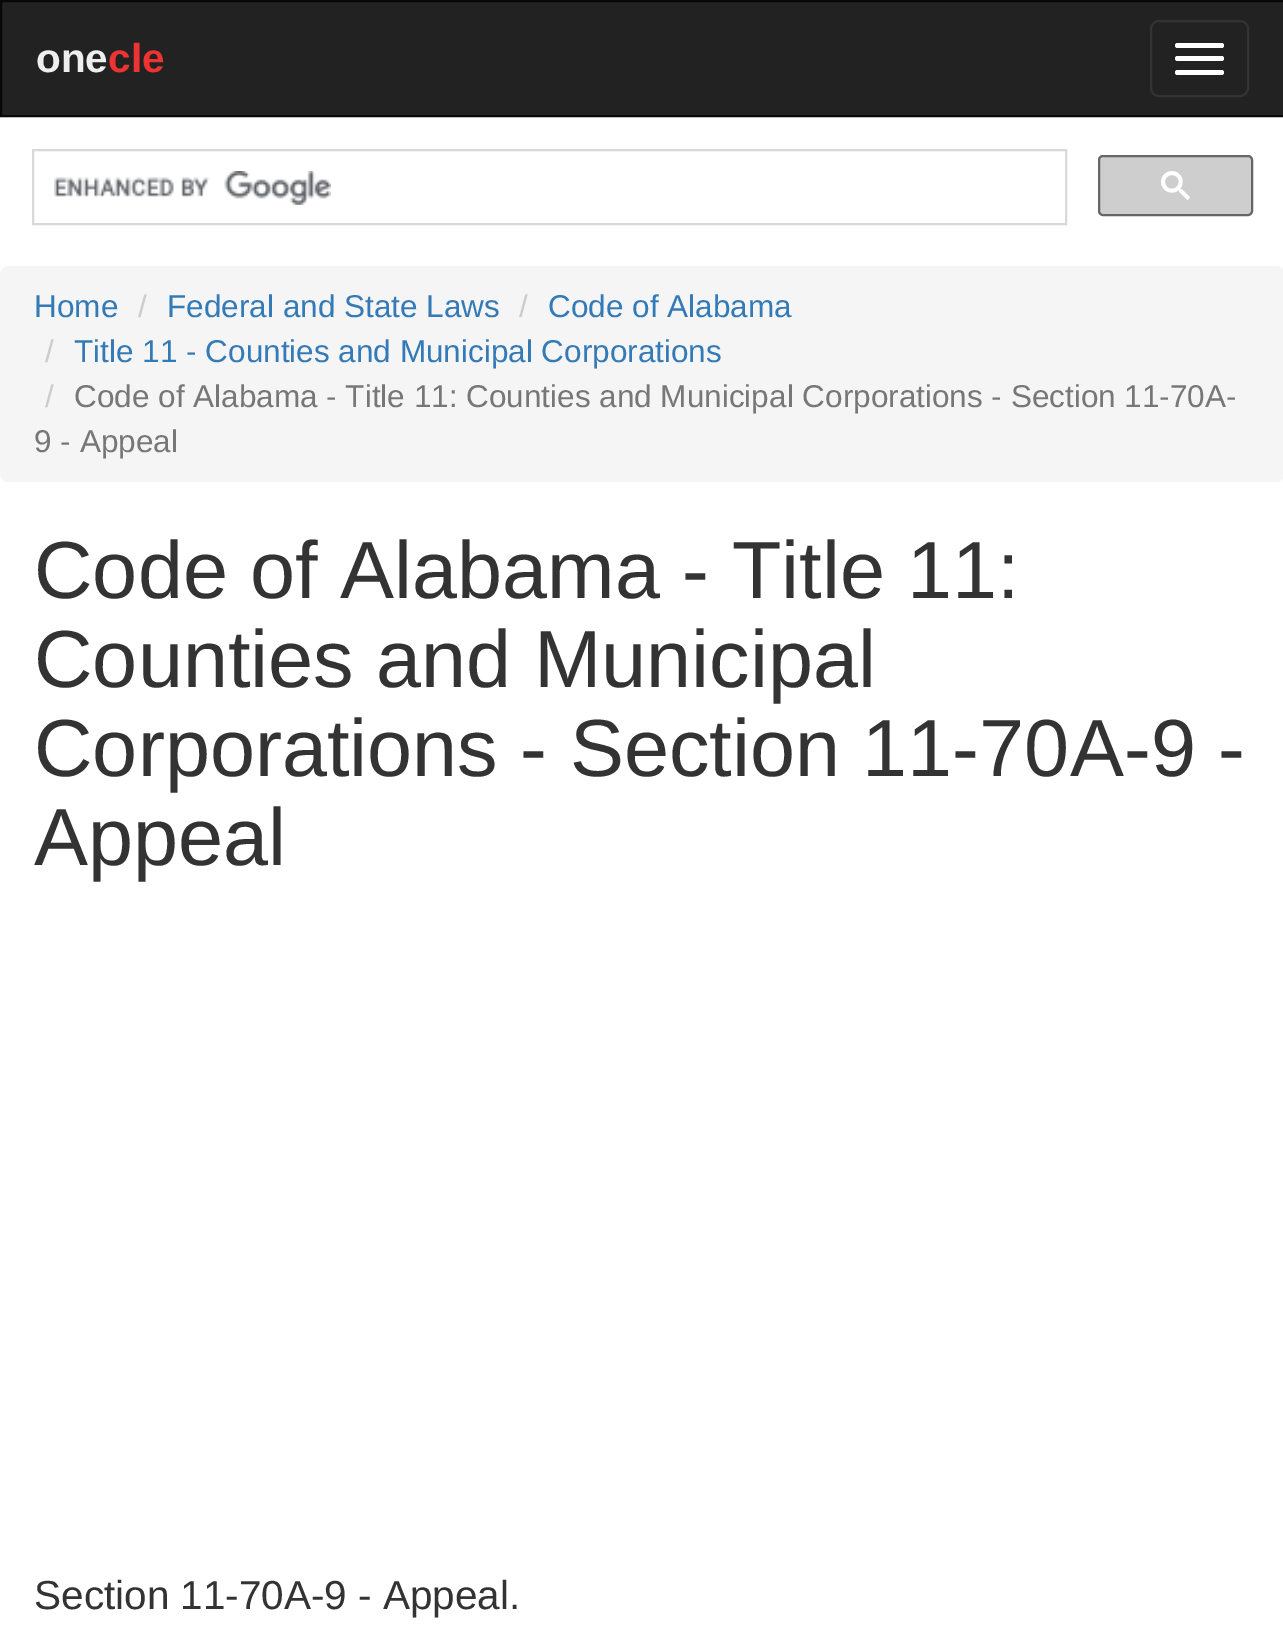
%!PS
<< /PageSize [1283 1635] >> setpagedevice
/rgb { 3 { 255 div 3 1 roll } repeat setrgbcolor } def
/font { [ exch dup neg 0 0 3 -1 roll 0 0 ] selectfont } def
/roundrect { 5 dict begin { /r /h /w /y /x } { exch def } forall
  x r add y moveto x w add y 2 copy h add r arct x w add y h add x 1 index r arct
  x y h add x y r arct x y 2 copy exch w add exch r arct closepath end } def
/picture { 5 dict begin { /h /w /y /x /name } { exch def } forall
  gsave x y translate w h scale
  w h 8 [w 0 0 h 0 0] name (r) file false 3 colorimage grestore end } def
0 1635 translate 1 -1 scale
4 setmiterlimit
255 255 255 rgb
0 0 1283 1635 rectfill
34 34 34 rgb
1 1 moveto 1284 1 lineto 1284 116 lineto 1 116 lineto closepath gsave fill grestore
8 8 8 rgb
2 setlinewidth
stroke
51 51 51 rgb
1151 21 97 75 8 roundrect stroke
255 255 255 rgb
1175 43 49 5 2.5 roundrect fill
1175 56 49 5 2.5 roundrect fill
1175 70 49 5 2.5 roundrect fill
217 217 217 rgb
33 150 1033 74 rectstroke
(img/1.rgb) 54 171 277 34 picture
206 206 206 rgb
1099 156 153 59 4 roundrect gsave fill grestore
102 102 102 rgb
stroke
(img/2.rgb) 1161 171 29 29 picture
245 245 245 rgb
0 266 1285 216 9 roundrect fill
/LiberationSans-Bold 40.5 font
238 238 238 rgb
36 72 moveto (one) show
238 51 51 rgb
108 72 moveto (cle) show
/LiberationSans-Regular 31.5 font
51 122 183 rgb
34 317 moveto (Home) show
204 204 204 rgb
138 317 moveto (/) show
51 122 183 rgb
167 317 moveto (Federal and State Laws) show
204 204 204 rgb
519 317 moveto (/) show
51 122 183 rgb
548 317 moveto (Code of Alabama) show
204 204 204 rgb
45 362 moveto (/) show
51 122 183 rgb
74 362 moveto (Title 11 - Counties and Municipal Corporations) show
204 204 204 rgb
45 407 moveto (/) show
119 119 119 rgb
74 407 moveto (Code of Alabama - Title 11: Counties and Municipal Corporations - Section 11-70A-) show
34 452 moveto (9 - Appeal) show
/LiberationSans-Regular 81 font
51 51 51 rgb
[
  [(Code of Alabama - Title 11:) 34 598]
  [(Counties and Municipal) 34 687]
  [(Corporations - Section 11-70A-9 -) 34 776]
  [(Appeal) 34 865]
] { aload pop moveto show } forall
/LiberationSans-Regular 40.5 font
34 1609 moveto (Section 11-70A-9 - Appeal.) show
showpage
